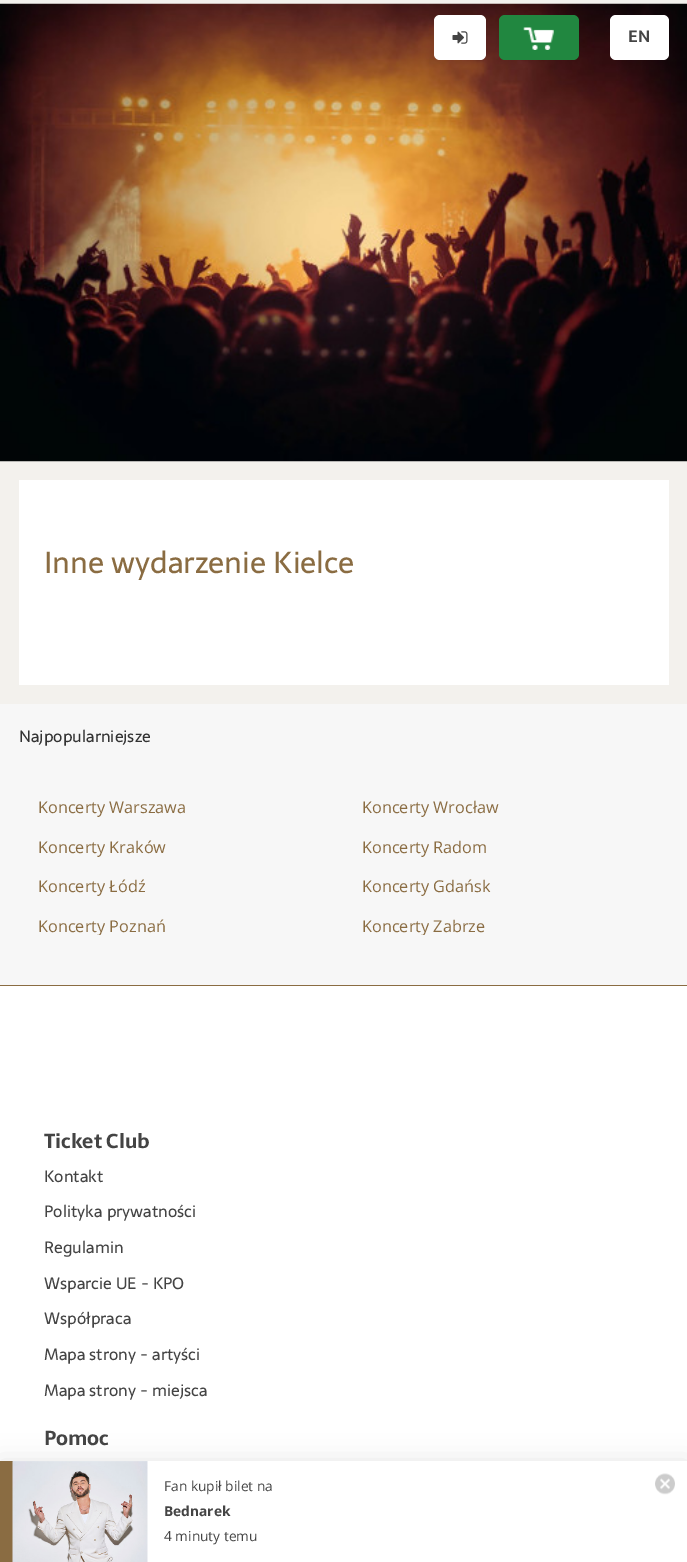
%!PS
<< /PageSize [687 1562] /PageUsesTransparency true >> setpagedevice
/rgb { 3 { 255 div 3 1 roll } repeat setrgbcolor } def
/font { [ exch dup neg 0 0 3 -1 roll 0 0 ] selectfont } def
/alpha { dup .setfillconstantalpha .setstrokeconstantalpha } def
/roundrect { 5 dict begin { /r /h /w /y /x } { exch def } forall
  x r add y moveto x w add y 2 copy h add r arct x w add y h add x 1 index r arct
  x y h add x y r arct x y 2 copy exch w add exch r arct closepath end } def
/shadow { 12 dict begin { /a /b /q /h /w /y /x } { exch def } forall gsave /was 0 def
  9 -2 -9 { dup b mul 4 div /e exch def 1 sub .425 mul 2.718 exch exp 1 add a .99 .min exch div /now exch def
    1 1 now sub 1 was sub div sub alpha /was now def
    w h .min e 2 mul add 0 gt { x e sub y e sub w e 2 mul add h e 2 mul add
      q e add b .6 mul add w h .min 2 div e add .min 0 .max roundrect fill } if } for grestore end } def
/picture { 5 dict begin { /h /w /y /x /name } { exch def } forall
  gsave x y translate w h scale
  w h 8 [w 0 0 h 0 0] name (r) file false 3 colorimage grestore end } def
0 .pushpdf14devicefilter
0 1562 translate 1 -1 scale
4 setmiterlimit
243 241 237 rgb
0 0 687 1562 rectfill
(img/3.rgb) 0 3 687 459 picture
255 255 255 rgb
434 15 52 45 6 roundrect fill
(img/1.rgb) 452 31 16 13 picture
33 135 64 rgb
499 15 80 45 6 roundrect fill
(img/2.rgb) 523 27 31 23 picture
255 255 255 rgb
610 15 59 45 6 roundrect fill
[
  [19 480 650 205 255 255 255]
  [0 704 687 281 247 247 247]
  [0 986 687 475 255 255 255]
  [0 985 687 1 138 108 66]
] { aload pop rgb rectfill } forall
0 0 0 rgb
0 1461 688 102 0 12.5 0.1 shadow
255 255 255 rgb
13 1461 674 101 rectfill
138 108 66 rgb
0 1461 13 101 rectfill
(img/4.rgb) 12 1461 136 101 picture
(img/5.rgb) 655 1473 20 22 picture
/Sarala-Bold 16.25 font
68 68 68 rgb
628 42 moveto (EN) show
/Sarala-Regular 30 font
138 108 66 rgb
44 573 moveto (Inne wydarzenie Kielce) show
/Sarala-Regular 16.25 font
51 51 51 rgb
19 742 moveto (Najpopularniejsze) show
/OpenSans-Regular 16.25 font
138 108 66 rgb
[
  [(Koncerty Warszawa) 38 813]
  [(Koncerty Wrocław) 362 813]
  [(Koncerty Kraków) 38 853]
  [(Koncerty Radom) 362 853]
  [(Koncerty Łódź) 38 892]
  [(Koncerty Gdańsk) 362 892]
] { aload pop moveto show } forall
gsave
19 704 650 231 rectclip
38 932 moveto (Koncerty Poznań) show
362 932 moveto (Koncerty Zabrze) show
grestore
/Sarala-Bold 20 font
68 68 68 rgb
44 1148 moveto (Ticket Club) show
/Sarala-Regular 16.25 font
[
  [(Kontakt) 44 1182]
  [(Polityka prywatności) 44 1217]
  [(Regulamin) 44 1253]
  [(Wsparcie UE - KPO) 44 1289]
  [(Współpraca) 44 1324]
  [(Mapa strony - artyści) 44 1360]
  [(Mapa strony - miejsca) 44 1396]
] { aload pop moveto show } forall
/Sarala-Bold 20 font
44 1445 moveto (Pomoc) show
/OpenSans-Regular 13.75 font
164 1491 moveto (Fan kupił bilet na) show
/OpenSans-Bold 13.75 font
164 1516 moveto (Bednarek) show
/OpenSans-Regular 13.75 font
164 1541 moveto (4 minuty temu) show
.poppdf14devicefilter showpage
